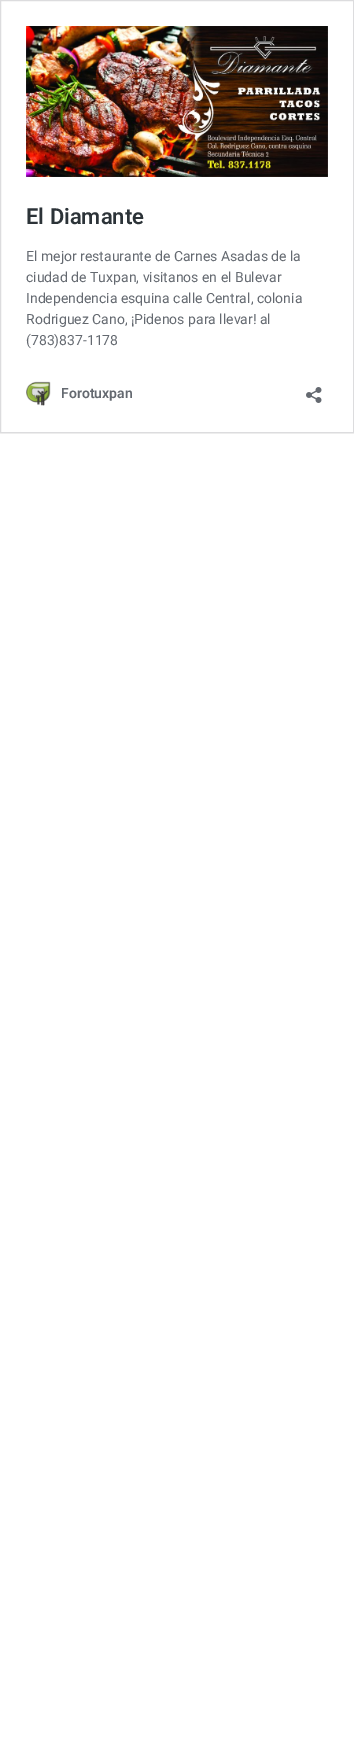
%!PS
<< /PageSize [354 1762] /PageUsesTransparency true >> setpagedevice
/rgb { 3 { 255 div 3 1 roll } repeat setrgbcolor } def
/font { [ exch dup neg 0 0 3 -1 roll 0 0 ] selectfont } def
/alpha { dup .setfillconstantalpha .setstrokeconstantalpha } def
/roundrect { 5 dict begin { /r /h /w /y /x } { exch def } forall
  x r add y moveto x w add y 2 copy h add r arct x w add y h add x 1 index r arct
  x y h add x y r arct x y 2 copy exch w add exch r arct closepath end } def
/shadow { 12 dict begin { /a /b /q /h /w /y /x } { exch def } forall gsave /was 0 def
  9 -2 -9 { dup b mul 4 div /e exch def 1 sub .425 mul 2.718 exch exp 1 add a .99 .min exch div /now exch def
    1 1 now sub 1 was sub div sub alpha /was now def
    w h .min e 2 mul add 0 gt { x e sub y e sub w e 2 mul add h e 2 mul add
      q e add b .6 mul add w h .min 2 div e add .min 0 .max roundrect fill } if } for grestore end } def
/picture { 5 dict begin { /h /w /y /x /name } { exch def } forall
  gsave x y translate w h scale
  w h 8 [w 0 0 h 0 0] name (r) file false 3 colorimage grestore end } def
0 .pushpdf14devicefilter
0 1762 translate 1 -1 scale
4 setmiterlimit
255 255 255 rgb
0 0 354 1762 rectfill
gsave
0 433 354 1 rectclip
0 0 0 rgb
0 1 354 433 0 0.5 0.05 shadow
grestore
220 220 222 rgb
0.5 0.5 353 432 rectstroke
(img/1.rgb) 26 26 302 151 picture
(img/2.rgb) 26 381 25 25 picture
(img/3.rgb) 306 387 16 16 picture
/Roboto-SemiBold 22 font
44 51 56 rgb
26 224 moveto (El Diamante) show
/Roboto-Regular 14 font
100 105 112 rgb
[
  [(El mejor restaurante de Carnes Asadas de la) 26 261]
  [(ciudad de Tuxpan, visitanos en el Bulevar) 26 282]
  [(Independencia esquina calle Central, colonia) 26 303]
  [(Rodriguez Cano, ¡Pidenos para llevar! al) 26 324]
  [(\(783\)837-1178) 26 345]
] { aload pop moveto show } forall
/Roboto-SemiBold 14 font
61 398 moveto (Forotuxpan) show
.poppdf14devicefilter showpage
